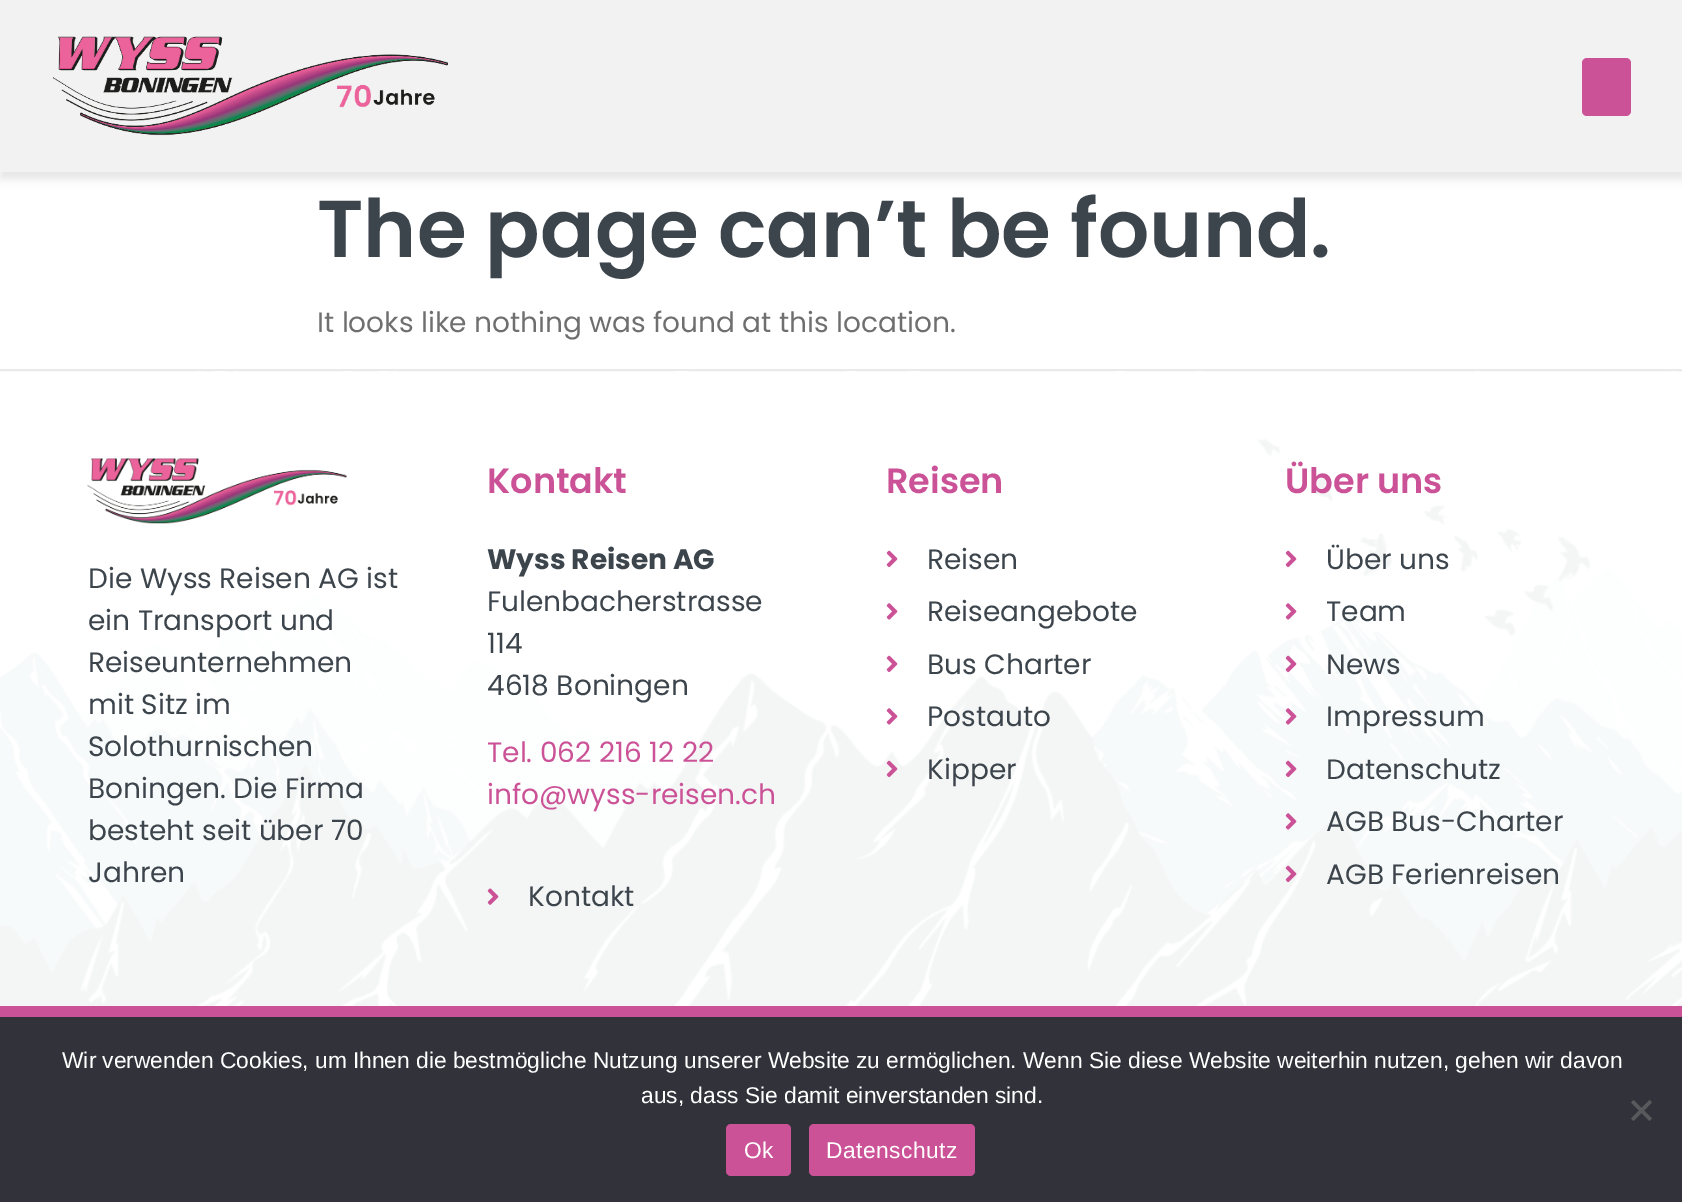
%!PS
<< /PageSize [1682 1202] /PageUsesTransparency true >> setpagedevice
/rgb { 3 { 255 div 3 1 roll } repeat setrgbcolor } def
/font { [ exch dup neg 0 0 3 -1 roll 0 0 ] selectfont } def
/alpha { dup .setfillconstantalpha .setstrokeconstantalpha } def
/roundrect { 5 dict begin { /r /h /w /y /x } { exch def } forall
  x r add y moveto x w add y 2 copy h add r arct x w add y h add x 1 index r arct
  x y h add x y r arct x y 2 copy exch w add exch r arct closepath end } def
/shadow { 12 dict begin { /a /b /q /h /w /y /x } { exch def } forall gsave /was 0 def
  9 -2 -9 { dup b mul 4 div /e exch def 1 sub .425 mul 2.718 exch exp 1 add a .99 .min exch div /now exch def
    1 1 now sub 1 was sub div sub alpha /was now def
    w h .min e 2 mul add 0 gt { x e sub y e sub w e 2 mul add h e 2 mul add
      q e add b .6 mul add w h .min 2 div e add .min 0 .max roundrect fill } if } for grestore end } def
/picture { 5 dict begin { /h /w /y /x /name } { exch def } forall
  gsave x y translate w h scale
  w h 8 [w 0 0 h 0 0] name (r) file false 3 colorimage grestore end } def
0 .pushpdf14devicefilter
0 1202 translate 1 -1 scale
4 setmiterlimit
255 255 255 rgb
0 0 1682 1202 rectfill
0 0 0 rgb
0 7 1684 172 0 4.5 0.1 shadow
242 242 242 rgb
0 0 1682 172 rectfill
(img/1.rgb) 53 36 395 100 picture
203 82 150 rgb
1582 58 49 58 5 roundrect fill
(img/2.rgb) 0 371 1682 635 picture
234 234 234 rgb
0 369 1682 2 rectfill
(img/3.rgb) 87 458 260 66 picture
(img/4.rgb) 487 888 12 17 picture
(img/5.rgb) 886 550 12 18 picture
(img/6.rgb) 886 603 12 17 picture
(img/5.rgb) 886 655 12 18 picture
(img/6.rgb) 886 708 12 17 picture
(img/7.rgb) 886 760 12 18 picture
(img/5.rgb) 1285 550 12 18 picture
(img/6.rgb) 1285 603 12 17 picture
(img/8.rgb) 1285 655 12 18 picture
(img/9.rgb) 1285 708 12 17 picture
(img/10.rgb) 1285 760 12 18 picture
(img/11.rgb) 1285 813 12 17 picture
(img/12.rgb) 1285 865 12 18 picture
203 82 150 rgb
0 1006 1682 11 rectfill
50 50 58 rgb
0 1017 1682 185 rectfill
89 89 93 rgb
1649.5 1100 moveto 1652 1102.5 lineto 1633.5 1121 lineto 1631 1118.5 lineto closepath fill
1631 1102.5 moveto 1633.5 1100 lineto 1652 1118.5 lineto 1649.5 1121 lineto closepath fill
203 82 150 rgb
726 1124 65 52 5 roundrect fill
809 1124 166 52 5 roundrect fill
/Poppins-SemiBold 80.5 font
61 69 76 rgb
317 257 moveto (The page can’t be found.) show
/Poppins-Regular 28 font
111 111 111 rgb
317 332 moveto (It looks like nothing was found at this location.) show
61 69 76 rgb
[
  [(Die Wyss Reisen AG ist) 88 588]
  [(ein Transport und) 88 630]
  [(Reiseunternehmen) 88 672]
  [(mit Sitz im) 88 714]
  [(Solothurnischen) 88 756]
  [(Boningen. Die Firma) 88 798]
  [(besteht seit über 70) 88 840]
  [(Jahren) 88 882]
] { aload pop moveto show } forall
/Poppins-SemiBold 35 font
203 82 150 rgb
487 493 moveto (Kontakt) show
/Poppins-Bold 28 font
61 69 76 rgb
487 569 moveto (Wyss Reisen AG) show
/Poppins-Regular 28 font
[
  [(Fulenbacherstrasse) 487 611]
  [(114) 487 653]
  [(4618 Boningen) 487 695]
] { aload pop moveto show } forall
203 82 150 rgb
487 762 moveto (Tel. 062 216 12 22) show
487 804 moveto (info@wyss-reisen.ch) show
61 69 76 rgb
528 906 moveto (Kontakt) show
/Poppins-SemiBold 35 font
203 82 150 rgb
886 493 moveto (Reisen) show
/Poppins-Regular 28 font
61 69 76 rgb
[
  [(Reisen) 927 569]
  [(Reiseangebote) 927 621]
  [(Bus Charter) 927 674]
  [(Postauto) 927 726]
  [(Kipper) 927 779]
] { aload pop moveto show } forall
/Poppins-SemiBold 35 font
203 82 150 rgb
1285 493 moveto (Über uns) show
/Poppins-Regular 28 font
61 69 76 rgb
[
  [(Über uns) 1326 569]
  [(Team) 1326 621]
  [(News) 1326 674]
  [(Impressum) 1326 726]
  [(Datenschutz) 1326 779]
  [(AGB Bus-Charter) 1326 831]
  [(AGB Ferienreisen) 1326 884]
] { aload pop moveto show } forall
/LiberationSans-Regular 22.75 font
255 255 255 rgb
62 1068 moveto (Wir verwenden Cookies, um Ihnen die bestmögliche Nutzung unserer Website zu ermöglichen. Wenn Sie diese Website weiterhin nutzen, gehen wir davon) show
641 1103 moveto (aus, dass Sie damit einverstanden sind.) show
744 1158 moveto 0.5 0 (Ok) ashow
826 1158 moveto 0.5 0 (Datenschutz) ashow
.poppdf14devicefilter showpage
